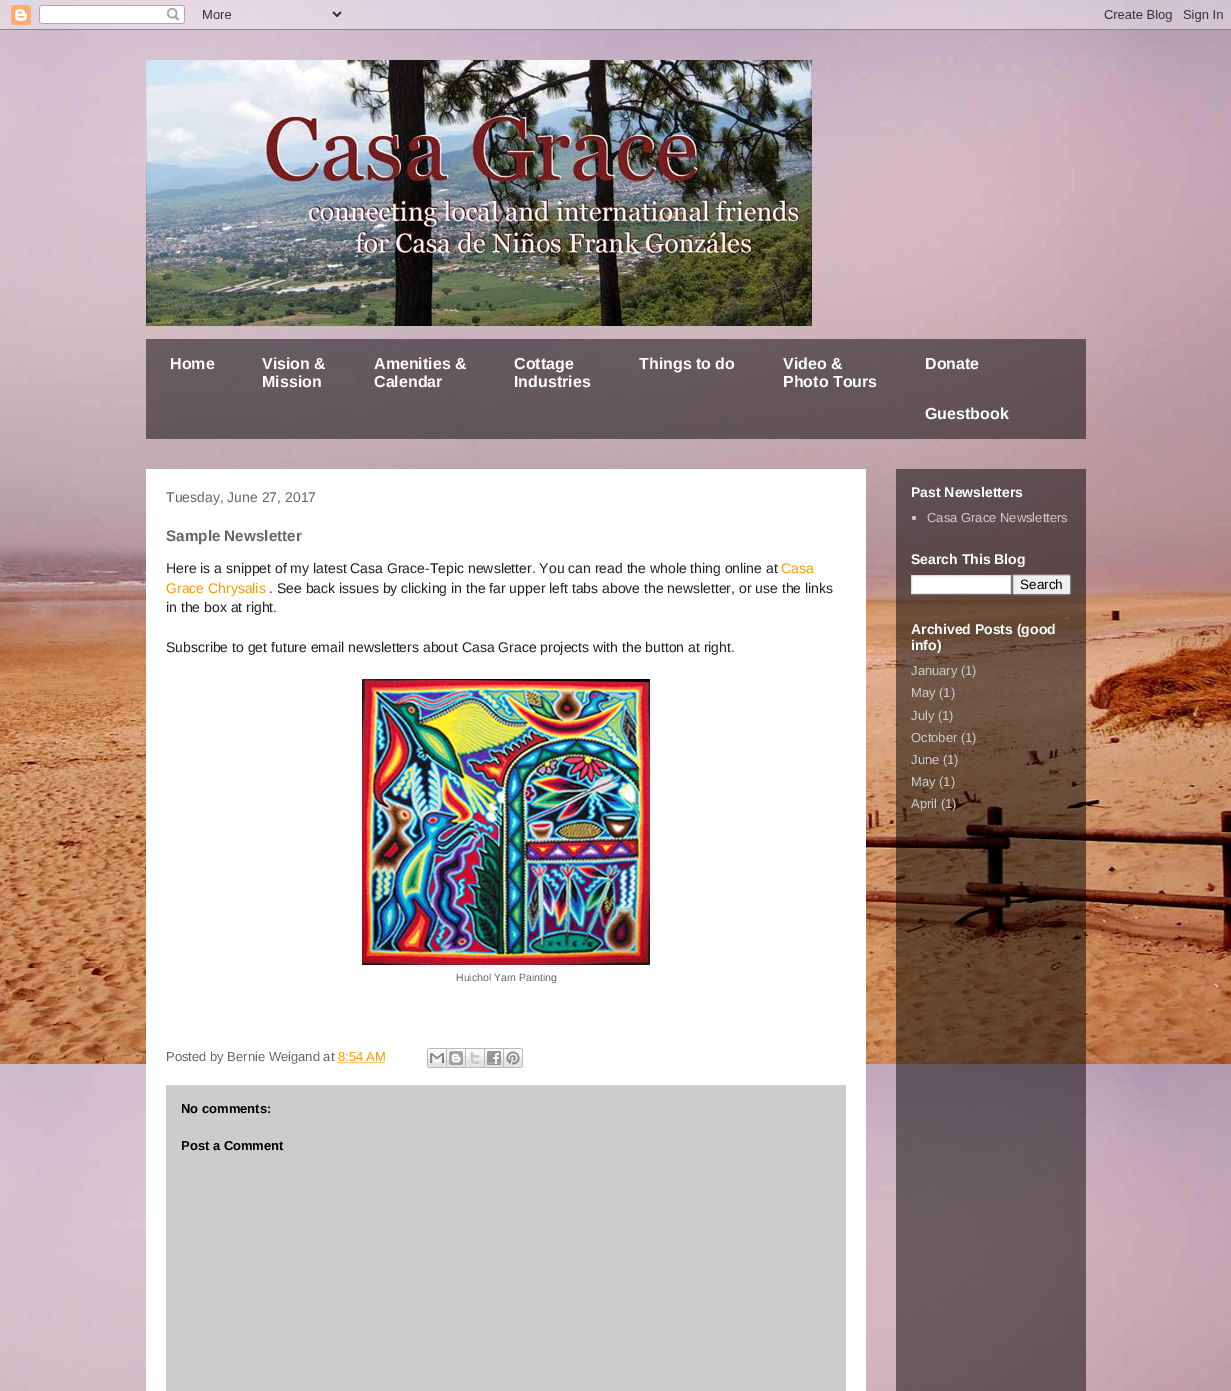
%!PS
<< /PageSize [1231 1391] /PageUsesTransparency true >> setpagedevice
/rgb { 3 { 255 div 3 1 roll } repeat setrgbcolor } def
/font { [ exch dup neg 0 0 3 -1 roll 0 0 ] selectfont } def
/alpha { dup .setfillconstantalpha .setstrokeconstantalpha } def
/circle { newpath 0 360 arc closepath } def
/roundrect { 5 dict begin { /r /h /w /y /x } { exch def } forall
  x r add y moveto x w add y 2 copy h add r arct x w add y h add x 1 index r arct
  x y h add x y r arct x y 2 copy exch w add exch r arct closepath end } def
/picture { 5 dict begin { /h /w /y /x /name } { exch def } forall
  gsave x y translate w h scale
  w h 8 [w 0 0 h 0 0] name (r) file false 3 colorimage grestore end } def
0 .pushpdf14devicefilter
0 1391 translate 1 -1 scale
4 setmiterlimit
255 255 255 rgb
0 0 1231 1391 rectfill
(img/1.rgb) 0 0 1231 1391 picture
(img/2.rgb) 0 0 1231 30 picture
(img/3.rgb) 146 60 666 266 picture
0.5 alpha
[
  [146 339 940 100 0 0 0]
  [896 469 190 922 0 0 0]
] { aload pop rgb rectfill } forall
1 alpha
[
  [146 469 720 922 255 255 255]
] { aload pop rgb rectfill } forall
(img/4.rgb) 362 679 288 286 picture
255 153 0 rgb
[1 1] 0 setdash
337.5 1062.5 moveto 385 1062.5 lineto stroke
(img/5.rgb) 427 1048 20 20 picture
(img/6.rgb) 447 1048 19 20 picture
(img/7.rgb) 466 1048 19 20 picture
(img/8.rgb) 485 1048 19 20 picture
(img/9.rgb) 504 1048 19 20 picture
204 204 204 rgb
166 1085 680 306 rectfill
914 518 2 circle fill
255 255 255 rgb
911.5 575.5 moveto 1010.5 575.5 lineto 1010.5 593.5 lineto 911.5 593.5 lineto closepath gsave fill grestore
221 221 221 rgb
[] 0 setdash
stroke
239 239 239 rgb
1012.5 574.5 58 20 1.5 roundrect gsave fill grestore
118 118 118 rgb
stroke
/LiberationSans-Bold 16 font
255 255 255 rgb
[
  [(Home) 170 369]
  [(Vision &) 262 369]
  [(Mission) 262 387]
  [(Amenities &) 374 369]
  [(Calendar) 374 387]
  [(Cottage) 514 369]
  [(Industries) 514 387]
  [(Things to do) 639 369]
  [(Video &) 783 369]
  [(Photo Tours) 783 387]
  [(Donate) 925 369]
  [(Guestbook) 925 419]
] { aload pop moveto show } forall
/LiberationSans-Regular 14 font
102 102 102 rgb
166 502 moveto (Tuesday, June 27, 2017) show
/LiberationSans-Bold 15.25 font
166 541 moveto (Sample Newsletter) show
/LiberationSans-Regular 14 font
29 33 41 rgb
166 573 moveto (Here is a snippet of my latest Casa Grace-Tepic newsletter. You can read the whole thing online at) show
255 153 0 rgb
781 573 moveto (Casa) show
166 593 moveto (Grace Chrysalis) show
29 33 41 rgb
[
  [(. See back issues by clicking in the far upper left tabs above the newsletter, or use the links) 269 593]
  [(in the box at right.) 166 612]
  [(Subscribe to get future email newsletters about Casa Grace projects with the button at right.) 166 652]
] { aload pop moveto show } forall
/LiberationSans-Regular 10.5 font
102 102 102 rgb
456 981 moveto (Huichol Yarn Painting) show
/LiberationSans-Regular 13 font
166 1061 moveto (Posted by Bernie Weigand at) show
255 153 0 rgb
338 1061 moveto (8:54 AM) show
/LiberationSans-Bold 13 font
0 0 0 rgb
181 1113 moveto (No comments:) show
181 1150 moveto (Post a Comment) show
/LiberationSans-Bold 14 font
255 255 255 rgb
911 497 moveto (Past Newsletters) show
/LiberationSans-Regular 13 font
204 204 204 rgb
927 522 moveto (Casa Grace Newsletters) show
/LiberationSans-Bold 14 font
255 255 255 rgb
911 564 moveto (Search This Blog) show
/LiberationSans-Regular 13.5 font
0 0 0 rgb
1020 589 moveto (Search) show
/LiberationSans-Bold 14 font
255 255 255 rgb
911 634 moveto (Archived Posts \(good) show
911 650 moveto (info\)) show
/LiberationSans-Regular 13 font
204 204 204 rgb
[
  [(January \(1\)) 911 675]
  [(May \(1\)) 911 697]
  [(July \(1\)) 911 720]
  [(October \(1\)) 911 742]
  [(June \(1\)) 911 764]
  [(May \(1\)) 911 786]
  [(April \(1\)) 911 808]
] { aload pop moveto show } forall
.poppdf14devicefilter showpage
